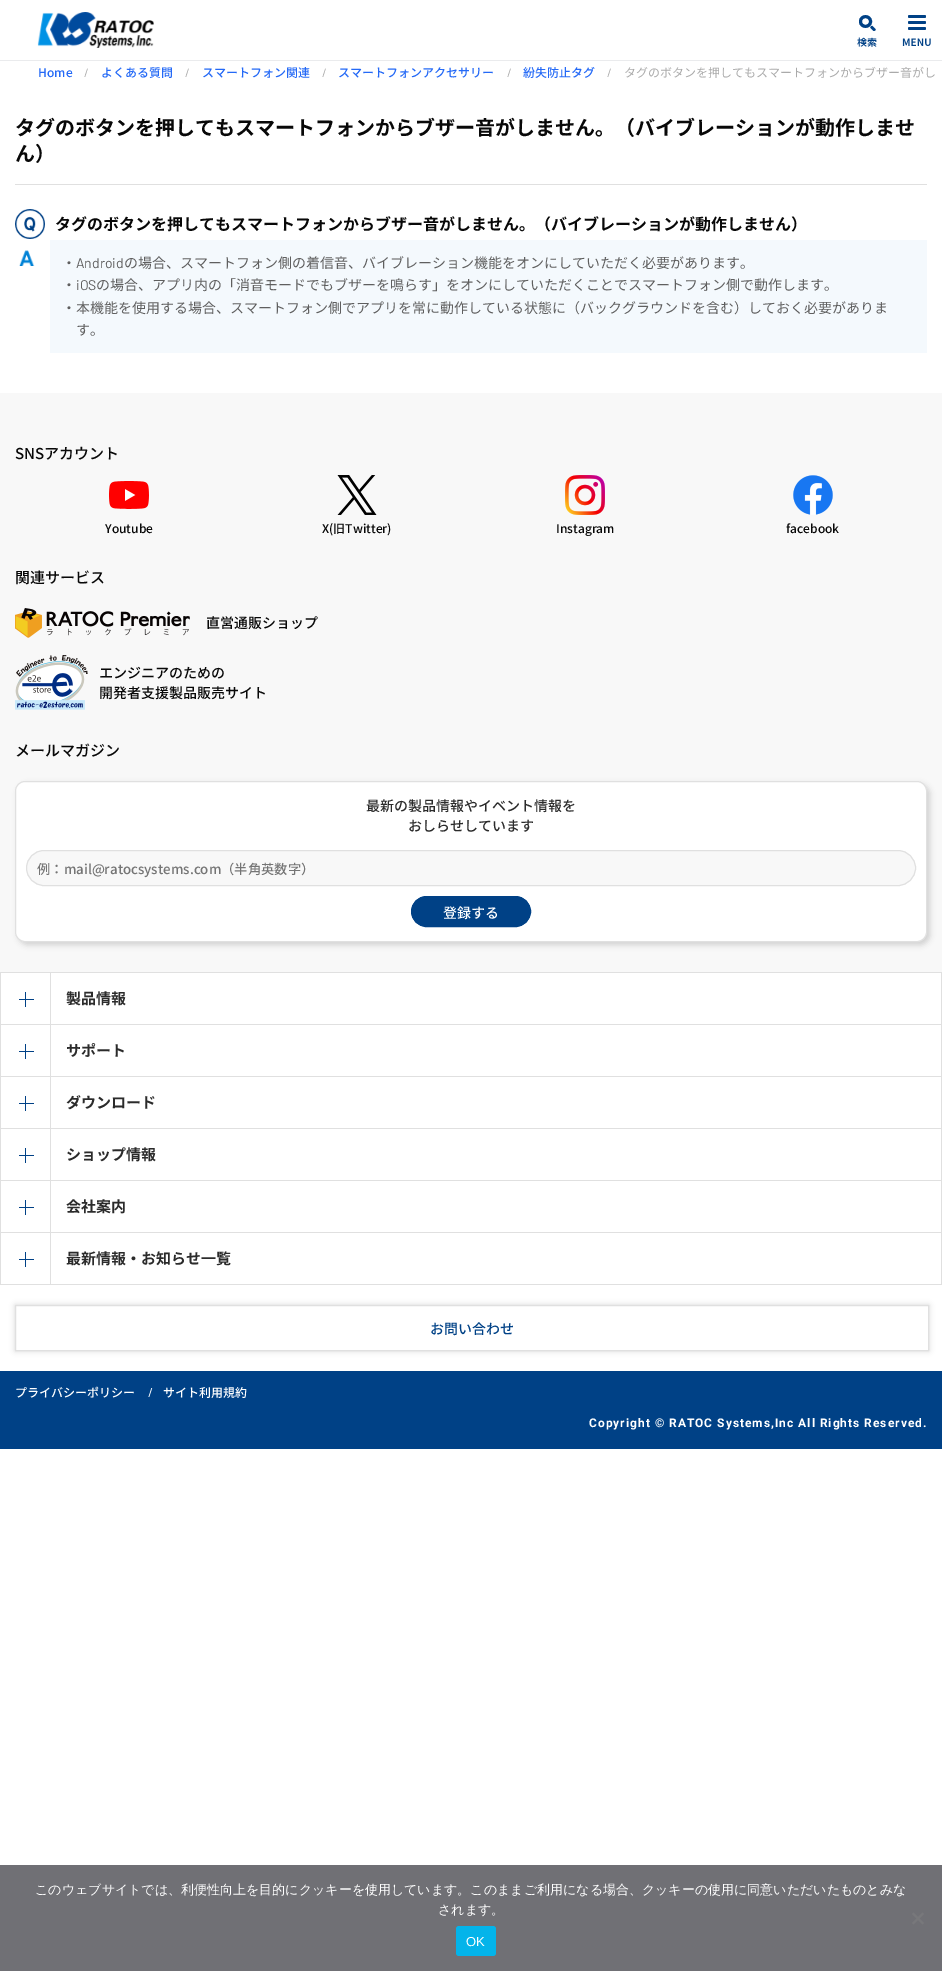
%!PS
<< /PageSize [942 1971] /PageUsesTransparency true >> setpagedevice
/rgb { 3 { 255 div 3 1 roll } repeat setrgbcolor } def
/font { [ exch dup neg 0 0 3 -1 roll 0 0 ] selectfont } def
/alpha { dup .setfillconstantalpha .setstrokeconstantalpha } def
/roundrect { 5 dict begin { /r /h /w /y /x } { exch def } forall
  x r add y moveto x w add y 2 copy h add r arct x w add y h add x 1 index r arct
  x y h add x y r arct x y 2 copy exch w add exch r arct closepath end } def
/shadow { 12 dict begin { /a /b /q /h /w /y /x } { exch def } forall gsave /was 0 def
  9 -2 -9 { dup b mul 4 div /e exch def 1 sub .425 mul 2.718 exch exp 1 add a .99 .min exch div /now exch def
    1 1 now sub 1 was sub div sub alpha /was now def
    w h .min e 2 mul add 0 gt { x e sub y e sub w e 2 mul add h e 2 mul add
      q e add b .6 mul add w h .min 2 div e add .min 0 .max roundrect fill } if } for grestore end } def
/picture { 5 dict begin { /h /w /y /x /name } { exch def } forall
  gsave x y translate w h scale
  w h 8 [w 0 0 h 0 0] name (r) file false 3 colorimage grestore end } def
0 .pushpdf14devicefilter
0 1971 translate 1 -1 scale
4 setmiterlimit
255 255 255 rgb
0 0 942 1971 rectfill
234 235 237 rgb
0 60 942 1 rectfill
(img/1.rgb) 37 12 117 36 picture
0 65 134 rgb
3 setlinewidth
860.5 21.5 moveto 860.5 15 870.5 15 870.5 21.5 curveto 870.5 28 860.5 28 860.5 21.5 curveto closepath stroke
873 30.5 moveto 870.5 28 lineto 870 27 871.5 25.5 872.5 26 curveto 875.5 29 lineto 876 30.5 874 31.5 873 30.5 curveto closepath fill
(img/2.rgb) 857 37 20 10 picture
908 15 18 3 1.5 roundrect fill
908 21 18 3 1.5 roundrect fill
908 27 18 3 1.5 roundrect fill
(img/3.rgb) 902 38 29 8 picture
224 224 224 rgb
15 184 912 1 rectfill
(img/4.rgb) 15 209 30 30 picture
(img/5.rgb) 19 250 16 16 picture
244 249 253 rgb
50 240 877 113 rectfill
248 248 248 rgb
0 393 942 579 rectfill
(img/6.rgb) 109 481 40 28 picture
(img/7.rgb) 337 475 40 40 picture
(img/8.rgb) 565 475 40 40 picture
(img/9.rgb) 793 475 40 40 picture
(img/10.rgb) 15 608 175 30 picture
(img/11.rgb) 15 655 73 55 picture
0 0 0 rgb
18 784 912 161 10 3 0.16 shadow
255 255 255 rgb
15.5 781.5 911 160 9.5 roundrect gsave fill grestore
224 224 224 rgb
1 setlinewidth
stroke
248 248 248 rgb
26.5 850.5 889 35 17.5 roundrect gsave fill grestore
224 224 224 rgb
stroke
0 65 134 rgb
411.5 896.5 119 30 15 roundrect gsave fill grestore
stroke
[
  [0 972 942 1 224 224 224]
  [941 972 1 52 224 224 224]
  [0 972 1 52 224 224 224]
  [50 973 1 51 224 224 224]
  [19 999 15 1 0 65 134]
  [25 992 1 15 0 65 134]
  [0 1024 942 1 224 224 224]
  [941 1024 1 52 224 224 224]
  [0 1024 1 52 224 224 224]
  [50 1025 1 51 224 224 224]
  [19 1051 15 1 0 65 134]
  [25 1044 1 15 0 65 134]
  [0 1076 942 1 224 224 224]
  [941 1076 1 52 224 224 224]
  [0 1076 1 52 224 224 224]
  [50 1077 1 51 224 224 224]
  [19 1103 15 1 0 65 134]
  [25 1096 1 15 0 65 134]
  [0 1128 942 1 224 224 224]
  [941 1128 1 52 224 224 224]
  [0 1128 1 52 224 224 224]
  [50 1129 1 51 224 224 224]
  [19 1155 15 1 0 65 134]
  [25 1148 1 15 0 65 134]
  [0 1180 942 1 224 224 224]
  [941 1180 1 52 224 224 224]
  [0 1180 1 52 224 224 224]
  [50 1181 1 51 224 224 224]
  [19 1207 15 1 0 65 134]
  [25 1200 1 15 0 65 134]
  [0 1284 942 1 224 224 224]
  [0 1232 942 1 224 224 224]
  [941 1232 1 52 224 224 224]
  [0 1232 1 52 224 224 224]
  [50 1233 1 51 224 224 224]
  [19 1259 15 1 0 65 134]
  [25 1252 1 15 0 65 134]
] { aload pop rgb rectfill } forall
gsave
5 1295 moveto 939 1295 lineto 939 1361 lineto 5 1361 lineto closepath 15 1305 moveto 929 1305 lineto 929 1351 lineto 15 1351 lineto closepath eoclip newpath
0 0 0 rgb
15 1305 914 46 0 3 0.16 shadow
grestore
224 224 224 rgb
15.5 1305.5 913 45 rectstroke
0 65 134 rgb
0 1371 942 78 rectfill
112 112 117 rgb
0 1865 942 106 rectfill
120 120 123 rgb
922.5 1912.5 moveto 924 1914 lineto 913.5 1924.5 lineto 912 1923 lineto closepath fill
912 1914 moveto 913.5 1912.5 lineto 924 1923 lineto 922.5 1924.5 lineto closepath fill
4 180 234 rgb
456 1926 40 30 3 roundrect fill
/NotoSansCJKJP-Medium 12 font
36 105 246 rgb
38 77 moveto (Home) show
/Barlow-Regular 12 font
170 170 170 rgb
84 77 moveto (/) show
/NotoSansCJKJP-Medium 12 font
36 105 246 rgb
101 77 moveto (よくある質問) show
/Barlow-Regular 12 font
170 170 170 rgb
185 77 moveto (/) show
/NotoSansCJKJP-Medium 12 font
36 105 246 rgb
202 77 moveto (スマートフォン関連) show
/Barlow-Regular 12 font
170 170 170 rgb
322 77 moveto (/) show
/NotoSansCJKJP-Medium 12 font
36 105 246 rgb
338 77 moveto (スマートフォンアクセサリー) show
/Barlow-Regular 12 font
170 170 170 rgb
507 77 moveto (/) show
/NotoSansCJKJP-Medium 12 font
36 105 246 rgb
523 77 moveto (紛失防止タグ) show
/Barlow-Regular 12 font
170 170 170 rgb
607 77 moveto (/) show
/NotoSansCJKJP-Regular 12 font
624 77 moveto (タグのボタンを押してもスマートフォンからブザー音がし) show
/NotoSansCJKJP-Bold 20 font
8 8 8 rgb
15 135 moveto (タグのボタンを押してもスマートフォンからブザー音がしません。（バイブレーションが動作しませ) show
15 161 moveto (ん）) show
/NotoSansCJKJP-Bold 16 font
55 230 moveto (タグのボタンを押してもスマートフォンからブザー音がしません。（バイブレーションが動作しません）) show
/NotoSansCJKJP-Regular 14 font
95 95 95 rgb
62 268 moveto (・) show
/Barlow-Regular 14 font
76 268 moveto (Android) show
/NotoSansCJKJP-Regular 14 font
124 268 moveto (の場合、スマートフォン側の着信音、バイブレーション機能をオンにしていただく必要があります。) show
62 290 moveto (・) show
/Barlow-Regular 14 font
76 290 moveto (iOS) show
/NotoSansCJKJP-Regular 14 font
[
  [(の場合、アプリ内の「消音モードでもブザーを鳴らす」をオンにしていただくことでスマートフォン側で動作します。) 96 290]
  [(・本機能を使用する場合、スマートフォン側でアプリを常に動作している状態に（バックグラウンドを含む）しておく必要がありま) 62 313]
  [(す。) 76 335]
] { aload pop moveto show } forall
/NotoSansCJKJP-Medium 15 font
8 8 8 rgb
15 459 moveto (SNSアカウント) show
/NotoSansCJKJP-Medium 12 font
[
  [(Youtube) 105 533]
  [(X\(旧Twitter\)) 322 533]
  [(Instagram) 556 533]
  [(facebook) 786 533]
] { aload pop moveto show } forall
/NotoSansCJKJP-Medium 15 font
15 583 moveto (関連サービス) show
/NotoSansCJKJP-Medium 14 font
[
  [(直営通販ショップ) 206 628]
  [(エンジニアのための) 99 678]
  [(開発者支援製品販売サイト) 99 698]
] { aload pop moveto show } forall
/NotoSansCJKJP-Medium 15 font
15 756 moveto (メールマガジン) show
/NotoSansCJKJP-Medium 14 font
43 43 43 rgb
366 811 moveto (最新の製品情報やイベント情報を) show
408 831 moveto (おしらせしています) show
/NotoSansCJKJP-Medium 13.3 font
117 117 117 rgb
37 874 moveto (例：mail@ratocsystems.com（半角英数字）) show
/NotoSansCJKJP-Medium 14 font
255 255 255 rgb
443 918 moveto (登録する) show
/NotoSansCJKJP-Bold 15 font
43 43 43 rgb
[
  [(製品情報) 66 1004]
  [(サポート) 66 1056]
  [(ダウンロード) 66 1108]
  [(ショップ情報) 66 1160]
  [(会社案内) 66 1212]
  [(最新情報・お知らせ一覧) 66 1264]
] { aload pop moveto show } forall
/NotoSansCJKJP-Medium 14 font
0 65 134 rgb
430 1334 moveto (お問い合わせ) show
/NotoSansCJKJP-Medium 12 font
255 255 255 rgb
15 1397 moveto (プライバシーポリシー) show
/Barlow-Regular 13 font
148 1397 moveto (/) show
/NotoSansCJKJP-Medium 12 font
163 1397 moveto (サイト利用規約) show
/Roboto-Bold 12 font
589 1427 moveto 1 0 (Copyright © RATOC Systems,Inc All Rights Reserved.) ashow
/WenQuanYiZenHei-Medium 13 font
35 1894 moveto (このウェブサイトでは、利便性向上を目的にクッキーを使用しています。このままご利用になる場合、クッキーの使用に同意いただいたものとみな) show
438 1914 moveto (されます。) show
/LiberationSans-Regular 13 font
466 1946 moveto (OK) show
.poppdf14devicefilter showpage
